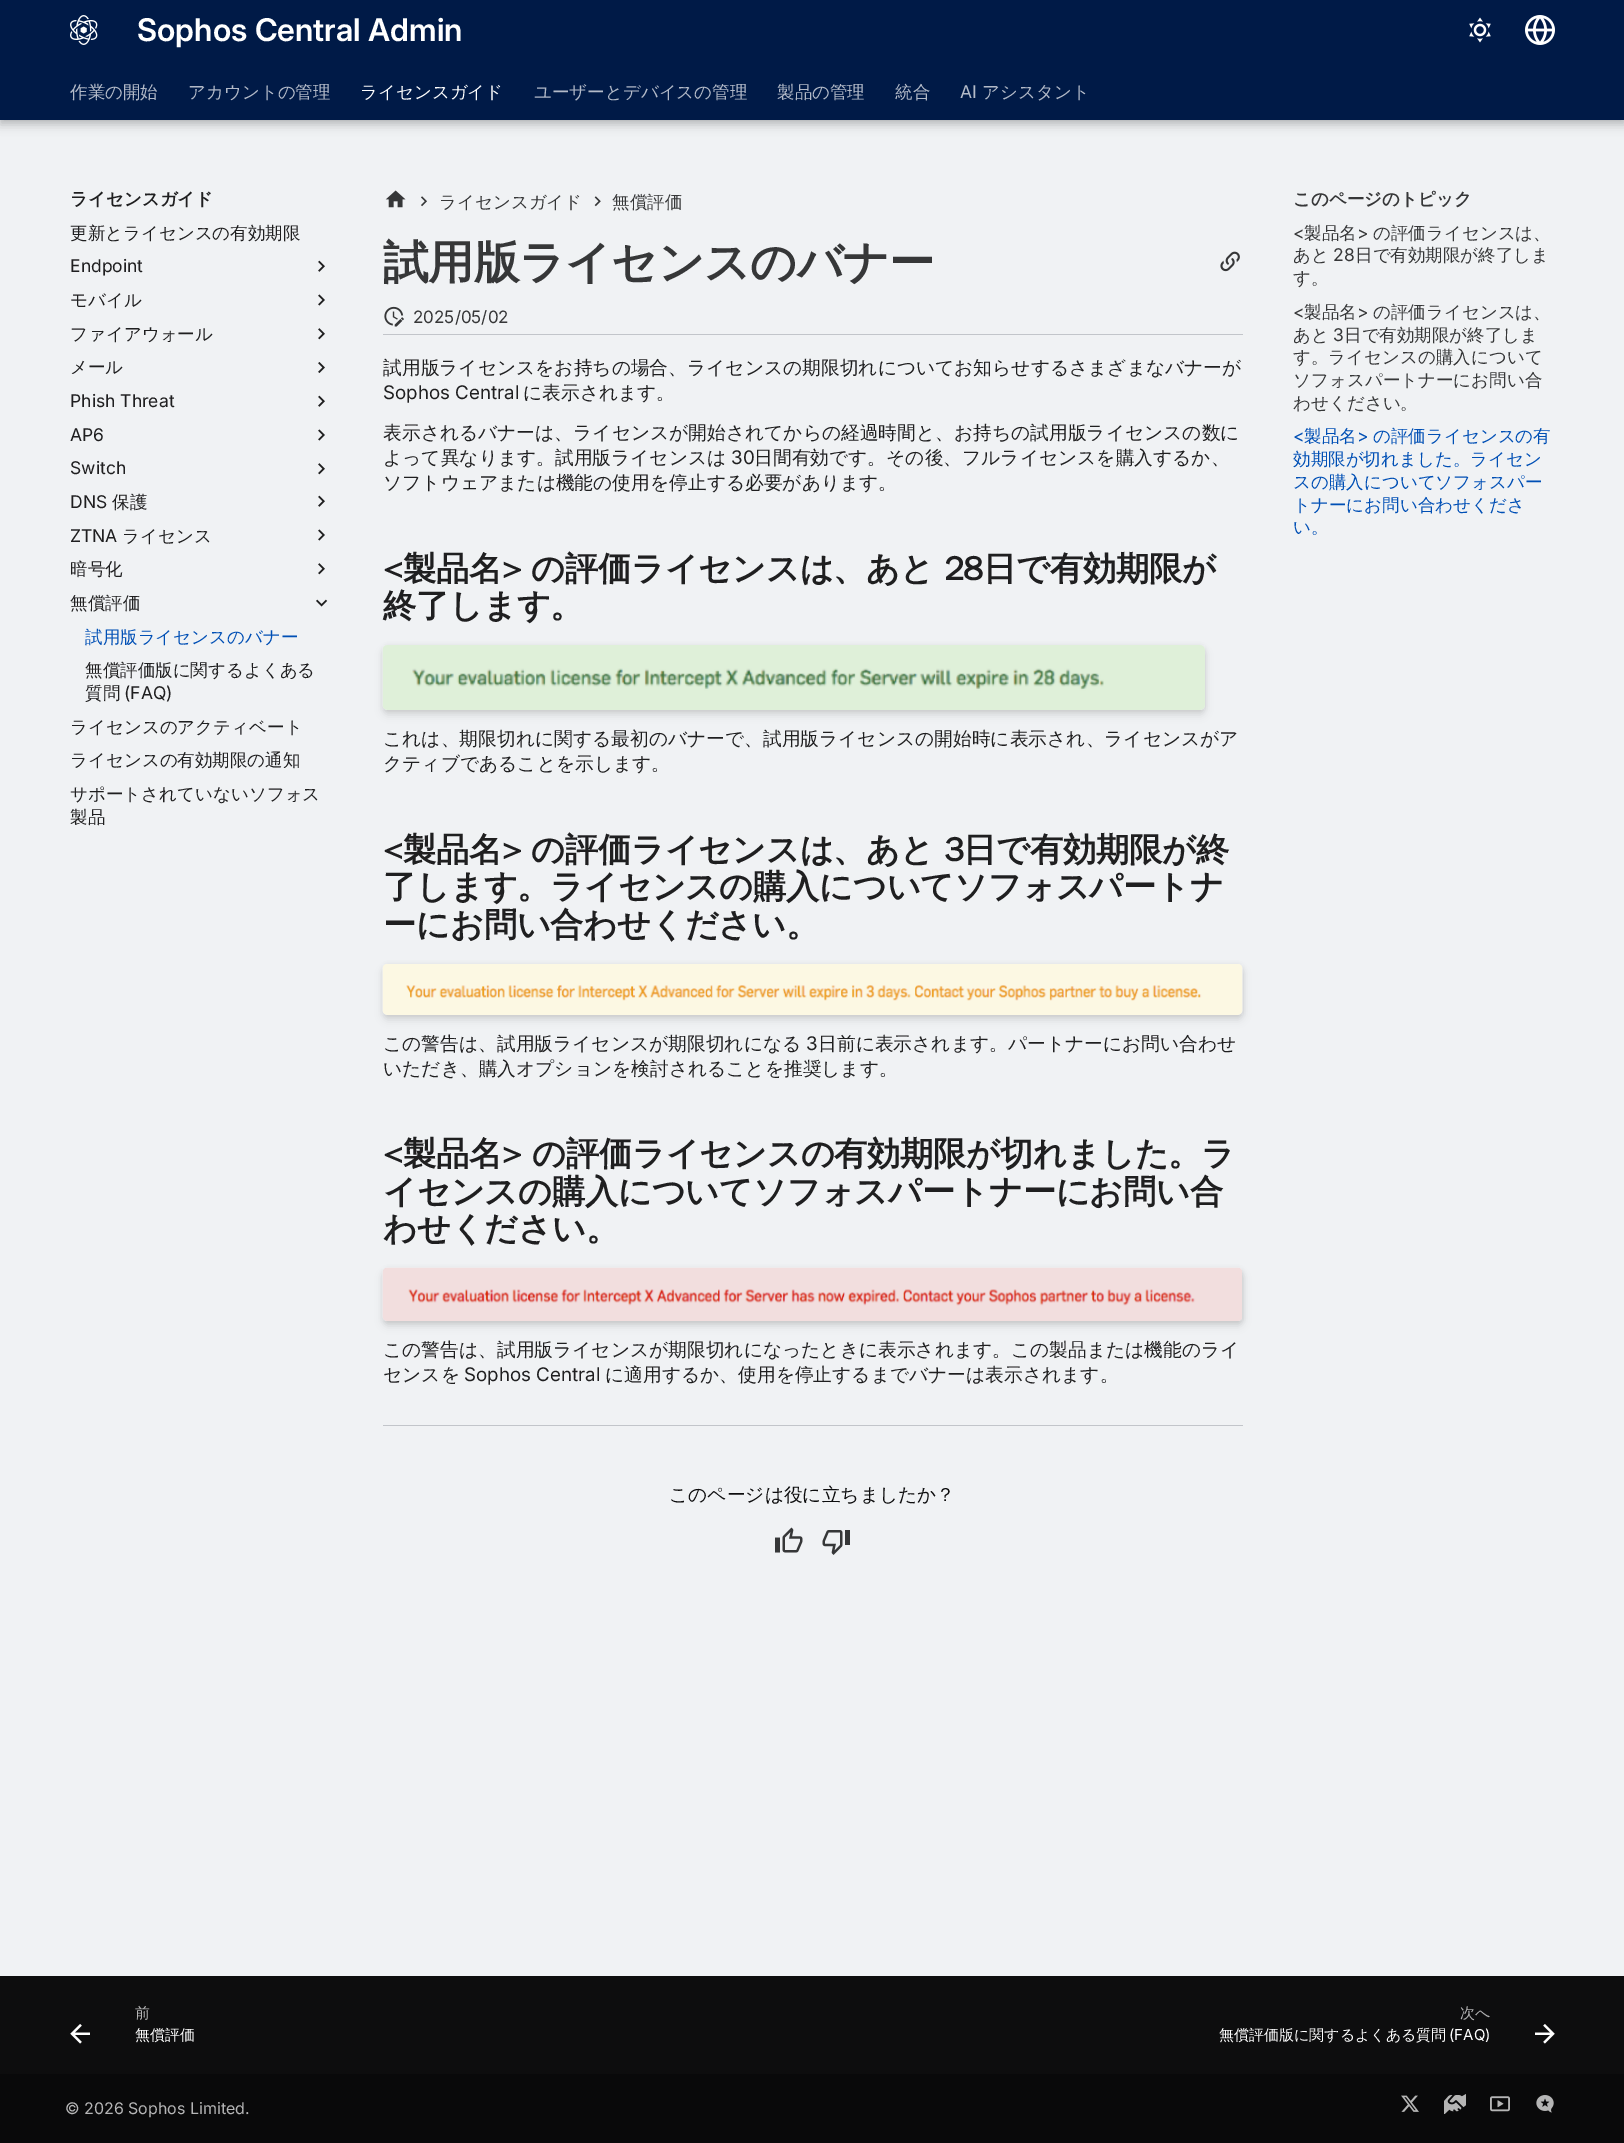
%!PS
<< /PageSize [1624 2143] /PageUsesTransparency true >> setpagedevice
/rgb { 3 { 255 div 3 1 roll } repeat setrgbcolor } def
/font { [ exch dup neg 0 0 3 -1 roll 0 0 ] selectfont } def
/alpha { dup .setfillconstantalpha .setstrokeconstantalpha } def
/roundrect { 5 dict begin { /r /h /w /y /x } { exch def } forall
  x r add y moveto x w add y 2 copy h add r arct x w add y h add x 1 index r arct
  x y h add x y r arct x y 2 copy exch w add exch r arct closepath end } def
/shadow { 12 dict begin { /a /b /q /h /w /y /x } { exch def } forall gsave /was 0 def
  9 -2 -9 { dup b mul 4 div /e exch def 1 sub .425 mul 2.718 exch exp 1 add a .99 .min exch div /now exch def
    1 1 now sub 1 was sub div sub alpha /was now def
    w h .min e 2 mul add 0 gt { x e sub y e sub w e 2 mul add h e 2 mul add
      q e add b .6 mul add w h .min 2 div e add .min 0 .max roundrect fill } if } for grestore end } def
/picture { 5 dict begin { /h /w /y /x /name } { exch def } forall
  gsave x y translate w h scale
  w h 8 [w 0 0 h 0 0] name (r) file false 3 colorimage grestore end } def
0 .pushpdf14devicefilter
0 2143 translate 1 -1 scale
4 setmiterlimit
240 242 244 rgb
0 0 1624 2143 rectfill
0 0 0 rgb
0 5 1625 120 0 5 0.2 shadow
0 0 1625 120 0 2.5 0.1 shadow
0 26 71 rgb
0 0 1624 120 rectfill
(img/1.rgb) 70 15 28 30 picture
(img/2.rgb) 1469 17 22 26 picture
(img/3.rgb) 1525 15 30 30 picture
gsave
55 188 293 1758 rectclip
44 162 moveto 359 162 lineto 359 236 lineto 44 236 lineto closepath 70 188 moveto 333 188 lineto 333 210 lineto 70 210 lineto closepath eoclip newpath
240 242 244 rgb
60 178 283 42 0 5 1 shadow
grestore
(img/4.rgb) 318 260 7 12 picture
(img/5.rgb) 318 294 7 12 picture
(img/6.rgb) 318 328 7 12 picture
(img/7.rgb) 318 362 7 11 picture
(img/4.rgb) 318 395 7 12 picture
(img/5.rgb) 318 429 7 12 picture
(img/6.rgb) 318 463 7 12 picture
(img/4.rgb) 318 495 7 12 picture
(img/5.rgb) 318 529 7 12 picture
(img/6.rgb) 318 563 7 12 picture
(img/8.rgb) 316 599 12 8 picture
(img/9.rgb) 385 190 21 18 picture
(img/10.rgb) 421 196 6 11 picture
(img/11.rgb) 594 196 7 11 picture
(img/12.rgb) 1220 251 20 21 picture
194 197 202 rgb
383 334 860 1 rectfill
(img/13.rgb) 384 306 20 21 picture
0 0 0 rgb
383 650 822 65 5 4 0.1 shadow
383 646 822 65 5 2 0.08 shadow
(img/14.rgb) 382 645 823 65 picture
383 969 860 51 5 4 0.1 shadow
383 965 860 51 5 2 0.08 shadow
(img/15.rgb) 382 964 861 51 picture
383 1273 860 53 5 4 0.1 shadow
383 1269 860 54 5 2 0.08 shadow
(img/16.rgb) 382 1267 860 54 picture
194 197 202 rgb
383 1425 860 1 rectfill
(img/17.rgb) 775 1527 28 26 picture
(img/18.rgb) 822 1530 28 25 picture
gsave
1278 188 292 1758 rectclip
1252 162 moveto 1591 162 lineto 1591 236 lineto 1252 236 lineto closepath 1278 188 moveto 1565 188 lineto 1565 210 lineto 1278 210 lineto closepath eoclip newpath
240 242 244 rgb
1268 178 307 42 0 5 1 shadow
grestore
13 13 14 rgb
0 1976 1624 98 rectfill
(img/19.rgb) 70 2024 20 20 picture
(img/20.rgb) 1535 2024 20 20 picture
9 9 10 rgb
0 2074 1624 69 rectfill
(img/21.rgb) 1401 2095 18 17 picture
(img/22.rgb) 1444 2094 22 20 picture
(img/23.rgb) 1490 2096 20 16 picture
(img/24.rgb) 1536 2095 18 18 picture
/Inter-SemiBold 31.25 font
255 255 255 rgb
137 41 moveto (Sophos Central Admin) show
/WenQuanYiZenHei-Medium 17.5 font
179 186 200 rgb
70 98 moveto (作業の開始) show
188 98 moveto (アカウントの管理) show
255 255 255 rgb
360 98 moveto (ライセンスガイド) show
179 186 200 rgb
[
  [(ユーザーとデバイスの管理) 534 98]
  [(製品の管理) 777 98]
  [(統合) 895 98]
] { aload pop moveto show } forall
/Inter-Regular 17.5 font
960 98 moveto (AI) show
/WenQuanYiZenHei-Medium 17.5 font
982 98 moveto (アシスタント) show
/WenQuanYiZenHei-Bold 17.5 font
31 31 32 rgb
70 205 moveto (ライセンスガイド) show
/WenQuanYiZenHei-Medium 17.5 font
70 239 moveto (更新とライセンスの有効期限) show
/Inter-Regular 17.5 font
70 272 moveto (Endpoint) show
/WenQuanYiZenHei-Medium 17.5 font
[
  [(モバイル) 70 306]
  [(ファイアウォール) 70 340]
  [(メール) 70 373]
] { aload pop moveto show } forall
/Inter-Regular 17.5 font
[
  [(Phish Threat) 70 407]
  [(AP6) 70 441]
  [(Switch) 70 474]
  [(DNS) 70 508]
] { aload pop moveto show } forall
/WenQuanYiZenHei-Medium 17.5 font
112 508 moveto (保護) show
/Inter-Regular 17.5 font
70 542 moveto (ZTNA) show
/WenQuanYiZenHei-Medium 17.5 font
[
  [(ライセンス) 122 542]
  [(暗号化) 70 575]
  [(無償評価) 70 609]
] { aload pop moveto show } forall
0 79 181 rgb
85 643 moveto (試用版ライセンスのバナー) show
31 31 32 rgb
85 676 moveto (無償評価版に関するよくある) show
85 699 moveto (質問) show
/Inter-Regular 17.5 font
124 699 moveto (\(FAQ\)) show
/WenQuanYiZenHei-Medium 17.5 font
[
  [(ライセンスのアクティベート) 70 733]
  [(ライセンスの有効期限の通知) 70 766]
  [(サポートされていないソフォス) 70 800]
  [(製品) 70 823]
] { aload pop moveto show } forall
54 55 56 rgb
439 208 moveto (ライセンスガイド) show
612 208 moveto (無償評価) show
/WenQuanYiZenHei-Bold 45.75 font
383 278 moveto -0.5 0 (試用版ライセンスのバナー) ashow
/Inter-Regular 17 font
413 323 moveto (2025/05/02) show
/WenQuanYiZenHei-Medium 18.75 font
31 31 32 rgb
383 374 moveto (試用版ライセンスをお持ちの場合、ライセンスの期限切れについてお知らせするさまざまなバナーが) show
/Inter-Regular 18.75 font
383 399 moveto (Sophos Central) show
/WenQuanYiZenHei-Medium 18.75 font
[
  [(に表示されます。) 523 399]
  [(表示されるバナーは、ライセンスが開始されてからの経過時間と、お持ちの試用版ライセンスの数に) 383 439]
  [(よって異なります。試用版ライセンスは) 383 464]
] { aload pop moveto show } forall
/Inter-Regular 18.75 font
731 464 moveto (30) show
/WenQuanYiZenHei-Medium 18.75 font
754 464 moveto (日間有効です。その後、フルライセンスを購入するか、) show
383 489 moveto (ソフトウェアまたは機能の使用を停止する必要があります。) show
/WenQuanYiZenHei-Bold 33.3 font
383 580 moveto -0.3 0 (<製品名> の評価ライセンスは、あと 28日で有効期限が) ashow
383 617 moveto -0.3 0 (終了します。) ashow
/WenQuanYiZenHei-Medium 18.75 font
383 745 moveto (これは、期限切れに関する最初のバナーで、試用版ライセンスの開始時に表示され、ライセンスがア) show
383 770 moveto (クティブであることを示します。) show
/WenQuanYiZenHei-Bold 33.3 font
383 861 moveto -0.3 0 (<製品名> の評価ライセンスは、あと 3日で有効期限が終) ashow
383 898 moveto -0.3 0 (了します。ライセンスの購入についてソフォスパートナ) ashow
383 936 moveto -0.3 0 (ーにお問い合わせください。) ashow
/WenQuanYiZenHei-Medium 18.75 font
383 1050 moveto (この警告は、試用版ライセンスが期限切れになる) show
/Inter-Regular 18.75 font
806 1050 moveto (3) show
/WenQuanYiZenHei-Medium 18.75 font
818 1050 moveto (日前に表示されます。パートナーにお問い合わせ) show
383 1075 moveto (いただき、購入オプションを検討されることを推奨します。) show
/WenQuanYiZenHei-Bold 33.3 font
383 1165 moveto 1 0 32 -0.3 0 (<製品名> の評価ライセンスの有効期限が切れました。ラ) awidthshow
383 1203 moveto -0.3 0 (イセンスの購入についてソフォスパートナーにお問い合) ashow
383 1240 moveto -0.3 0 (わせください。) ashow
/WenQuanYiZenHei-Medium 18.75 font
383 1356 moveto (この警告は、試用版ライセンスが期限切れになったときに表示されます。この製品または機能のライ) show
383 1381 moveto (センスを) show
/Inter-Regular 18.75 font
464 1381 moveto (Sophos Central) show
/WenQuanYiZenHei-Medium 18.75 font
605 1381 moveto (に適用するか、使用を停止するまでバナーは表示されます。) show
13 13 14 rgb
669 1501 moveto (このページは役に立ちましたか？) show
/WenQuanYiZenHei-Bold 17.5 font
54 55 56 rgb
1293 205 moveto (このページのトピック) show
/Inter-Regular 17.5 font
1293 239 moveto (<) show
/WenQuanYiZenHei-Medium 17.5 font
1304 239 moveto (製品名) show
/Inter-Regular 17.5 font
1357 239 moveto (>) show
/WenQuanYiZenHei-Medium 17.5 font
1373 239 moveto (の評価ライセンスは、) show
1293 261 moveto (あと) show
/Inter-Regular 17.5 font
1333 261 moveto (28) show
/WenQuanYiZenHei-Medium 17.5 font
1355 261 moveto (日で有効期限が終了しま) show
1293 284 moveto (す。) show
/Inter-Regular 17.5 font
1293 318 moveto (<) show
/WenQuanYiZenHei-Medium 17.5 font
1304 318 moveto (製品名) show
/Inter-Regular 17.5 font
1357 318 moveto (>) show
/WenQuanYiZenHei-Medium 17.5 font
1373 318 moveto (の評価ライセンスは、) show
1293 341 moveto (あと) show
/Inter-Regular 17.5 font
1333 341 moveto (3) show
/WenQuanYiZenHei-Medium 17.5 font
[
  [(日で有効期限が終了しま) 1344 341]
  [(す。ライセンスの購入について) 1293 363]
  [(ソフォスパートナーにお問い合) 1293 386]
  [(わせください。) 1293 409]
] { aload pop moveto show } forall
/Inter-Regular 17.5 font
0 79 181 rgb
1293 442 moveto (<) show
/WenQuanYiZenHei-Medium 17.5 font
1304 442 moveto (製品名) show
/Inter-Regular 17.5 font
1357 442 moveto (>) show
/WenQuanYiZenHei-Medium 17.5 font
[
  [(の評価ライセンスの有) 1373 442]
  [(効期限が切れました。ライセン) 1293 465]
  [(スの購入についてソフォスパー) 1293 488]
  [(トナーにお問い合わせくださ) 1293 511]
  [(い。) 1293 533]
] { aload pop moveto show } forall
/WenQuanYiZenHei-Medium 15 font
181 181 182 rgb
135 2018 moveto (前) show
255 255 255 rgb
135 2040 moveto (無償評価) show
181 181 182 rgb
1460 2018 moveto (次へ) show
255 255 255 rgb
1219 2040 moveto (無償評価版に関するよくある質問) show
/Inter-Regular 15 font
1449 2040 moveto (\(FAQ\)) show
/Inter-Regular 16 font
181 181 182 rgb
65 2114 moveto (© 2026 Sophos Limited.) show
.poppdf14devicefilter showpage
